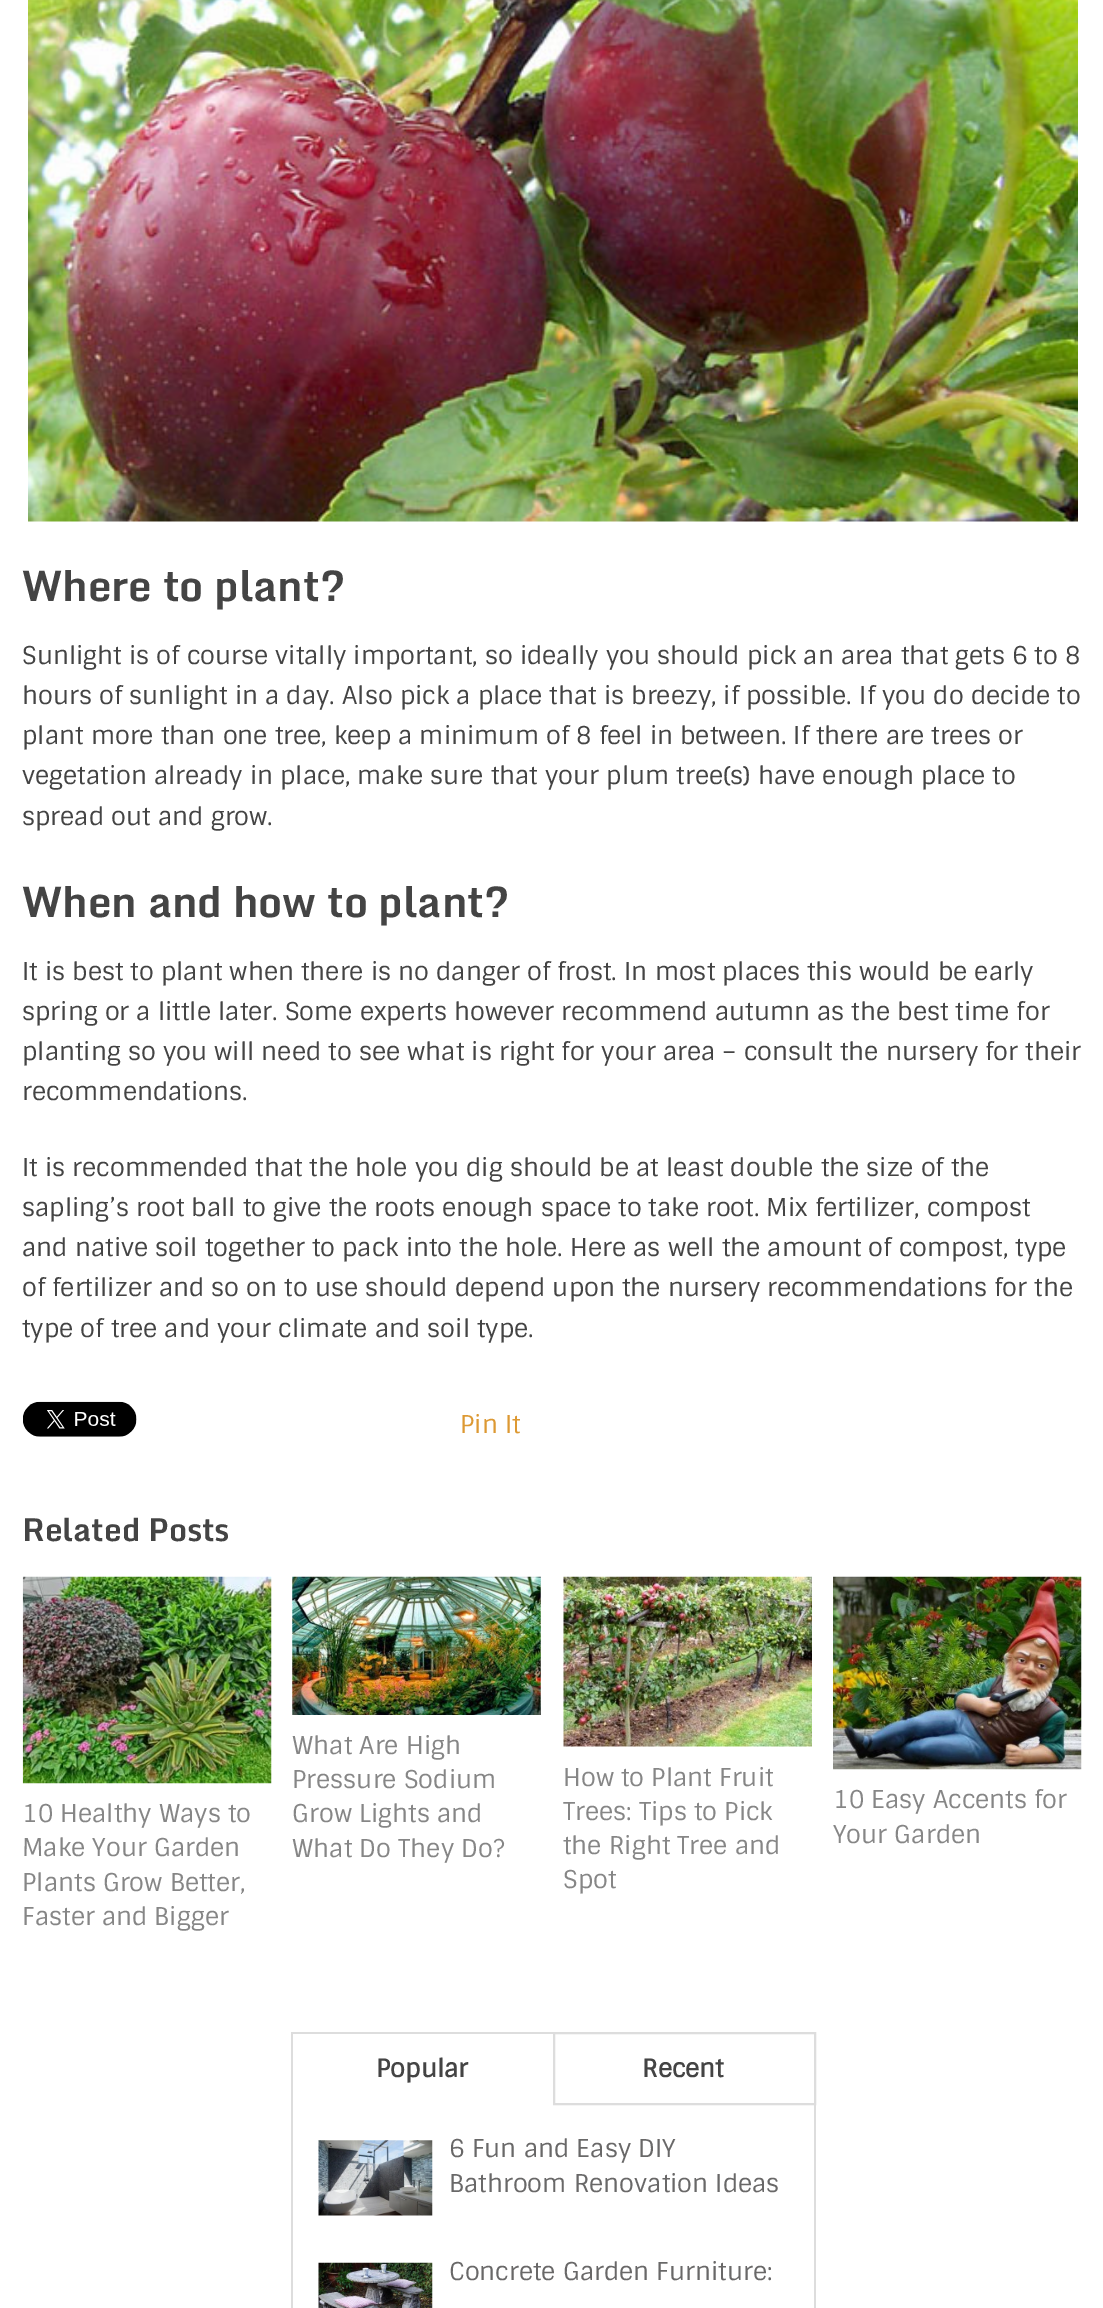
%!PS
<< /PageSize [1103 2308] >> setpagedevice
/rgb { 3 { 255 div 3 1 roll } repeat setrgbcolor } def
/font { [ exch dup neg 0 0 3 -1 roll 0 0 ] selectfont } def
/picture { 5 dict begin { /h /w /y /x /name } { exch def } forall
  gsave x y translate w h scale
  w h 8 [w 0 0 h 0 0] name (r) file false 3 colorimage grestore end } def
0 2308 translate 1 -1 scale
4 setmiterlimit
255 255 255 rgb
0 0 1103 2308 rectfill
(img/1.rgb) 28 0 1050 522 picture
(img/2.rgb) 23 1401 114 36 picture
(img/3.rgb) 22 1576 250 208 picture
(img/4.rgb) 292 1576 249 139 picture
(img/5.rgb) 563 1576 249 171 picture
(img/6.rgb) 833 1576 249 194 picture
221 221 221 rgb
291 2032 262 2 rectfill
291 2032 2 276 rectfill
2 setlinewidth
554 2033 261 71 rectstroke
814 2105 2 203 rectfill
(img/7.rgb) 318 2140 115 76 picture
(img/8.rgb) 318 2262 115 46 picture
/Monda-Bold 42 font
68 68 68 rgb
22 601 moveto (Where to plant?) show
/Sintony-Regular 24.5 font
[
  [(Sunlight is of course vitally important, so ideally you should pick an area that gets 6 to 8) 22 664]
  [(hours of sunlight in a day. Also pick a place that is breezy, if possible. If you do decide to) 22 704]
  [(plant more than one tree, keep a minimum of 8 feel in between. If there are trees or) 22 744]
  [(vegetation already in place, make sure that your plum tree\(s\) have enough place to) 22 784]
  [(spread out and grow.) 22 825]
] { aload pop moveto show } forall
/Monda-Bold 42 font
22 917 moveto (When and how to plant?) show
/Sintony-Regular 24.5 font
[
  [(It is best to plant when there is no danger of frost. In most places this would be early) 22 980]
  [(spring or a little later. Some experts however recommend autumn as the best time for) 22 1020]
  [(planting so you will need to see what is right for your area – consult the nursery for their) 22 1060]
  [(recommendations.) 22 1100]
  [(It is recommended that the hole you dig should be at least double the size of the) 22 1176]
  [(sapling’s root ball to give the roots enough space to take root. Mix fertilizer, compost) 22 1216]
  [(and native soil together to pack into the hole. Here as well the amount of compost, type) 22 1256]
  [(of fertilizer and so on to use should depend upon the nursery recommendations for the) 22 1296]
  [(type of tree and your climate and soil type.) 22 1337]
] { aload pop moveto show } forall
221 153 51 rgb
460 1433 moveto (Pin It) show
/Monda-Bold 31.5 font
68 68 68 rgb
22 1541 moveto (Related Posts) show
/Sintony-Regular 24.5 font
134 134 134 rgb
[
  [(10 Healthy Ways to) 22 1822]
  [(Make Your Garden) 22 1856]
  [(Plants Grow Better,) 22 1891]
  [(Faster and Bigger) 22 1925]
  [(What Are High) 292 1754]
  [(Pressure Sodium) 292 1788]
  [(Grow Lights and) 292 1822]
  [(What Do They Do?) 292 1857]
  [(How to Plant Fruit) 563 1786]
  [(Trees: Tips to Pick) 563 1820]
  [(the Right Tree and) 563 1854]
  [(Spot) 563 1888]
  [(10 Easy Accents for) 833 1808]
  [(Your Garden) 833 1843]
] { aload pop moveto show } forall
/Sintony-Bold 24.5 font
68 68 68 rgb
376 2077 moveto (Popular) show
642 2077 moveto (Recent) show
/Sintony-Regular 24.5 font
105 104 104 rgb
[
  [(6 Fun and Easy DIY) 449 2157]
  [(Bathroom Renovation Ideas) 449 2192]
  [(Concrete Garden Furniture:) 449 2280]
] { aload pop moveto show } forall
showpage
